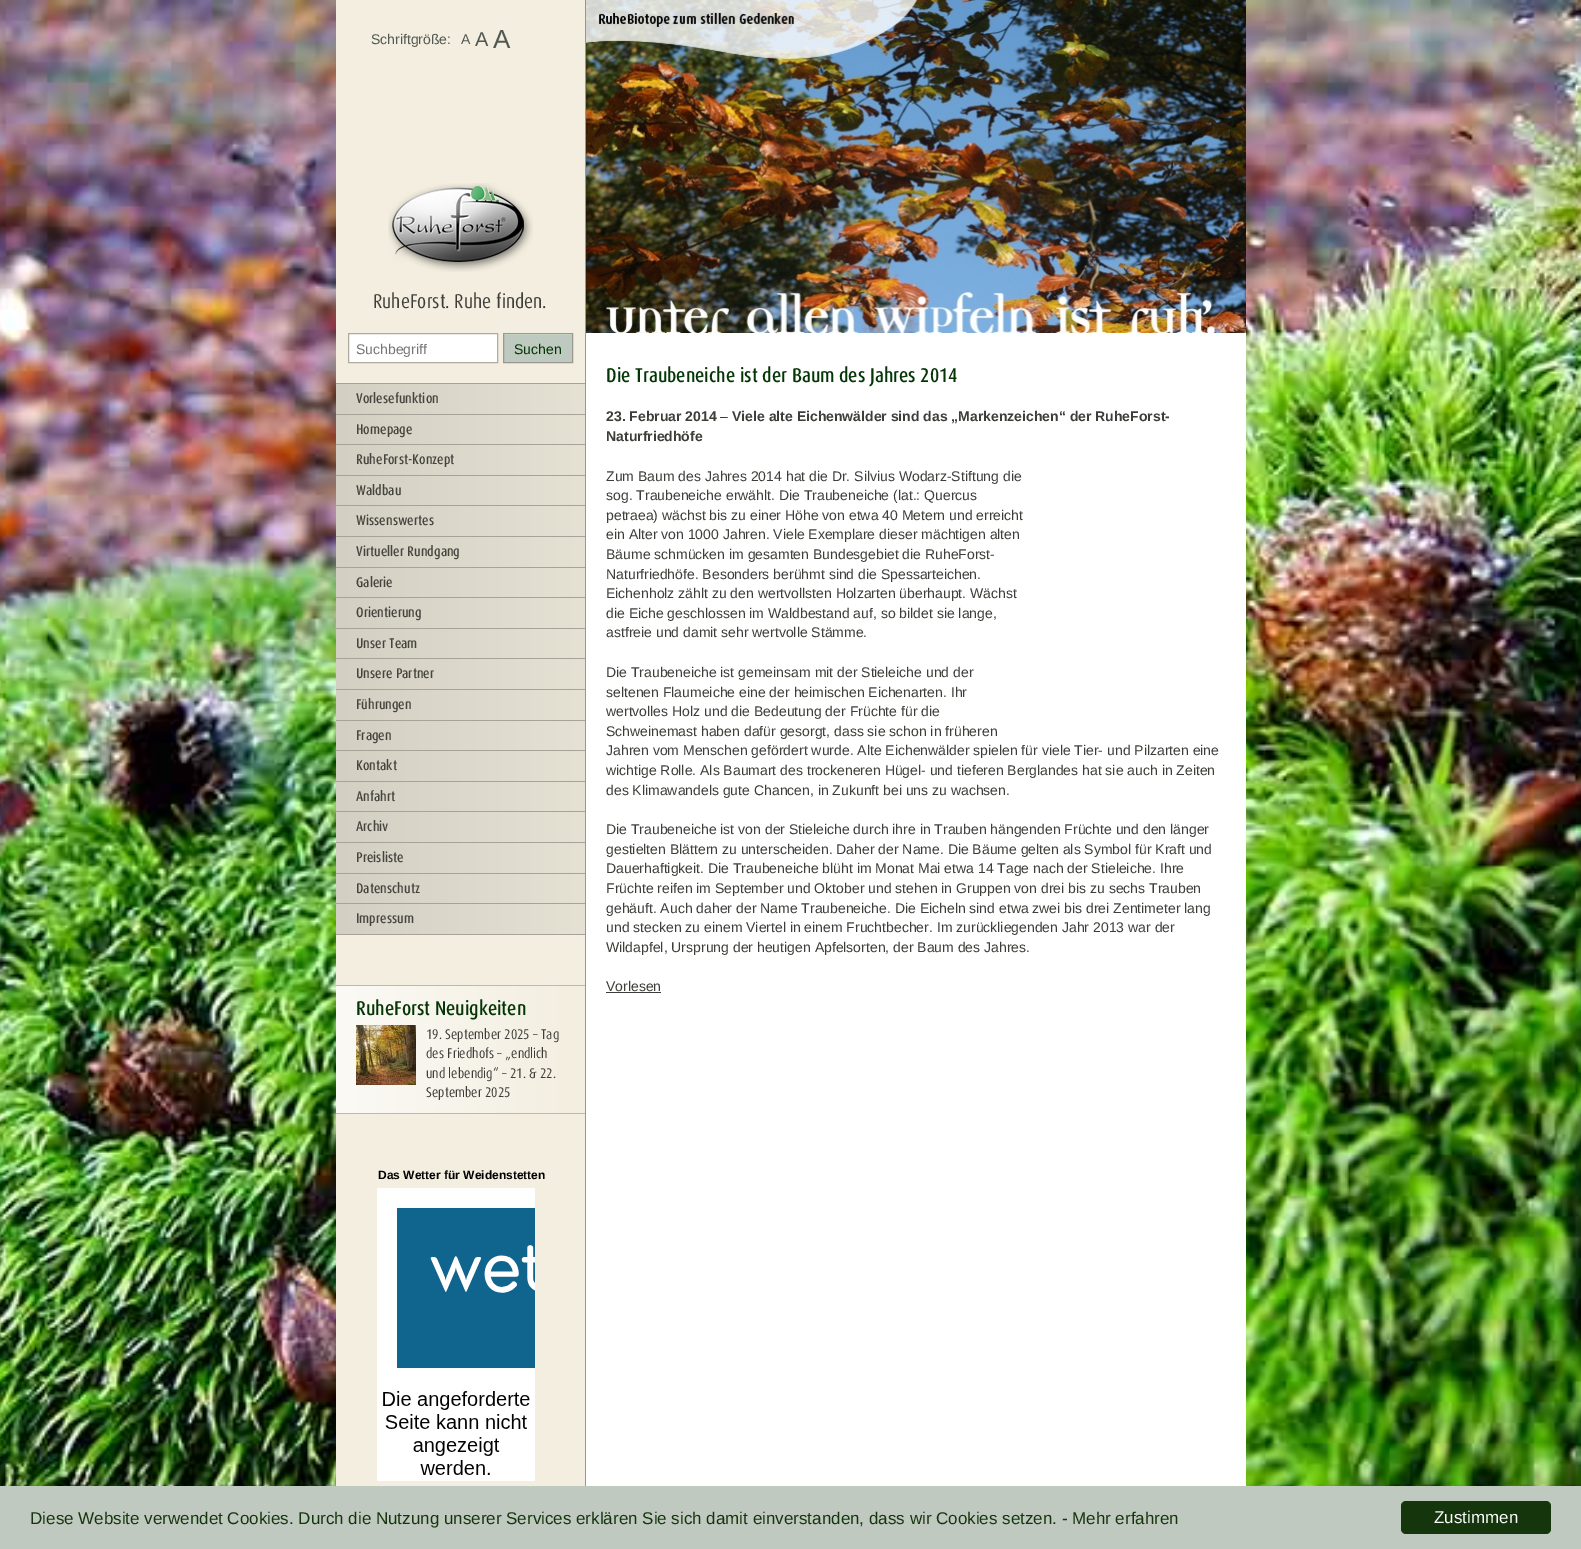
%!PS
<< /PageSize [1581 1549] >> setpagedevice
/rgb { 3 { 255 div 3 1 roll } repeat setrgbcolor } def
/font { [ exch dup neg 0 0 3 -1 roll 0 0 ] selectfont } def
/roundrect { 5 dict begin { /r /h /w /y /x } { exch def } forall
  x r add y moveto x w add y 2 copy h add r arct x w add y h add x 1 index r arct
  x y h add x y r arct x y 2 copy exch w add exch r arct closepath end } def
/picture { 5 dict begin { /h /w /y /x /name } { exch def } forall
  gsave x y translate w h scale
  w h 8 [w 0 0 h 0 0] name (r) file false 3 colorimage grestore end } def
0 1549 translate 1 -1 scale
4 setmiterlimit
255 255 255 rgb
0 0 1581 1549 rectfill
(img/1.rgb) 0 0 1581 1486 picture
243 238 223 rgb
336 0 249 1486 rectfill
153 150 141 rgb
585 0 1 1486 rectfill
(img/2.rgb) 388 183 145 89 picture
255 255 255 rgb
348.5 333.5 moveto 497.5 333.5 lineto 497.5 362.5 lineto 348.5 362.5 lineto closepath gsave fill grestore
174 171 161 rgb
stroke
190 201 191 rgb
504 335 68 27 rectfill
210 230 210 rgb
504 334 68 1 rectfill
154 152 144 rgb
503.5 333.5 69 29 rectstroke
gsave 336 384 moveto 585 384 lineto 585 934 lineto 336 934 lineto closepath clip newpath
<< /ShadingType 2 /ColorSpace /DeviceRGB /Coords [336 659 585 659] /Extend [true true] /Function << /FunctionType 2 /Domain [0 1] /C0 [0.827 0.812 0.761] /C1 [0.898 0.882 0.827] /N 1 >> >> shfill grestore
[
  [336 934 249 1 168 163 153]
  [336 383 249 1 168 163 153]
  [336 414 249 1 168 163 153]
  [336 444 249 1 168 163 153]
  [336 475 249 1 168 163 153]
  [336 505 249 1 168 163 153]
  [336 536 249 1 168 163 153]
  [336 567 249 1 168 163 153]
  [336 597 249 1 168 163 153]
  [336 628 249 1 168 163 153]
  [336 658 249 1 168 163 153]
  [336 689 249 1 168 163 153]
  [336 720 249 1 168 163 153]
  [336 750 249 1 168 163 153]
  [336 781 249 1 168 163 153]
  [336 811 249 1 168 163 153]
  [336 842 249 1 168 163 153]
  [336 873 249 1 168 163 153]
  [336 903 249 1 168 163 153]
] { aload pop rgb rectfill } forall
gsave 336 986 moveto 557 986 lineto 557 1113 lineto 336 1113 lineto closepath clip newpath
<< /ShadingType 2 /ColorSpace /DeviceRGB /Coords [336 1050 585 1050] /Extend [true true] /Function << /FunctionType 2 /Domain [0 1] /C0 [0.984 0.98 0.961] /C1 [0.953 0.933 0.875] /N 1 >> >> shfill grestore
190 184 173 rgb
336 985 249 1 rectfill
336 1113 249 1 rectfill
(img/3.rgb) 356 1025 60 60 picture
(img/4.rgb) 377 1188 158 293 picture
255 255 255 rgb
586 333 660 1153 rectfill
(img/5.rgb) 586 0 660 333 picture
62 61 57 rgb
606 992 55 1 rectfill
192 201 192 rgb
0 1486 1581 63 rectfill
21 53 13 rgb
1401 1501 150 33 5 roundrect fill
/LiberationSans-Regular 14 font
81 89 82 rgb
371 44 moveto (Schriftgröße:) show
461 44 moveto (A) show
/LiberationSans-Regular 20 font
475 46 moveto (A) show
/LiberationSans-Regular 26 font
493 48 moveto (A) show
/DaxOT-Regular 20 font
62 61 57 rgb
373 308 moveto (RuheForst. Ruhe finden.) show
/LiberationSans-Regular 14 font
117 117 117 rgb
356 354 moveto (Suchbegriff) show
3 54 4 rgb
514 354 moveto (Suchen) show
/DaxOT-Medium 14 font
70 68 63 rgb
[
  [(Vorlesefunktion) 356 403]
  [(Homepage) 356 434]
  [(RuheForst-Konzept) 356 464]
  [(Waldbau) 356 495]
  [(Wissenswertes) 356 525]
  [(Virtueller Rundgang) 356 556]
  [(Galerie) 356 587]
  [(Orientierung) 356 617]
  [(Unser Team) 356 648]
  [(Unsere Partner) 356 678]
  [(Führungen) 356 709]
  [(Fragen) 356 740]
  [(Kontakt) 356 770]
  [(Anfahrt) 356 801]
  [(Archiv) 356 831]
  [(Preisliste) 356 862]
  [(Datenschutz) 356 893]
  [(Impressum) 356 923]
] { aload pop moveto show } forall
/DaxOT-Medium 20 font
3 54 4 rgb
356 1015 moveto (RuheForst Neuigkeiten) show
/DaxOT-Regular 14 font
62 61 57 rgb
[
  [(19. September 2025 – Tag) 426 1039]
  [(des Friedhofs – „endlich) 426 1058]
  [(und lebendig“ – 21. & 22.) 426 1078]
  [(September 2025) 426 1097]
] { aload pop moveto show } forall
/LiberationSans-Bold 12 font
0 0 0 rgb
378 1179 moveto (Das Wetter für Weidenstetten) show
/DaxOT-Medium 20 font
3 54 4 rgb
606 382 moveto (Die Traubeneiche ist der Baum des Jahres 2014) show
/LiberationSans-Bold 14 font
62 61 57 rgb
606 421 moveto (23. Februar 2014) show
/LiberationSans-Regular 14 font
720 421 moveto (–) show
/LiberationSans-Bold 14 font
732 421 moveto (Viele alte Eichenwälder sind das „Markenzeichen“ der RuheForst-) show
606 441 moveto (Naturfriedhöfe) show
/LiberationSans-Regular 14 font
[
  [(Zum Baum des Jahres 2014 hat die Dr. Silvius Wodarz-Stiftung die) 606 481]
  [(sog. Traubeneiche erwählt. Die Traubeneiche \(lat.: Quercus) 606 500]
  [(petraea\) wächst bis zu einer Höhe von etwa 40 Metern und erreicht) 606 520]
  [(ein Alter von 1000 Jahren. Viele Exemplare dieser mächtigen alten) 606 539]
  [(Bäume schmücken im gesamten Bundesgebiet die RuheForst-) 606 559]
  [(Naturfriedhöfe. Besonders berühmt sind die Spessarteichen.) 606 579]
  [(Eichenholz zählt zu den wertvollsten Holzarten überhaupt. Wächst) 606 598]
  [(die Eiche geschlossen im Waldbestand auf, so bildet sie lange,) 606 618]
  [(astfreie und damit sehr wertvolle Stämme.) 606 637]
  [(Die Traubeneiche ist gemeinsam mit der Stieleiche und der) 606 677]
  [(seltenen Flaumeiche eine der heimischen Eichenarten. Ihr) 606 697]
  [(wertvolles Holz und die Bedeutung der Früchte für die) 606 716]
  [(Schweinemast haben dafür gesorgt, dass sie schon in früheren) 606 736]
  [(Jahren vom Menschen gefördert wurde. Alte Eichenwälder spielen für viele Tier- und Pilzarten eine) 606 755]
  [(wichtige Rolle. Als Baumart des trockeneren Hügel- und tieferen Berglandes hat sie auch in Zeiten) 606 775]
  [(des Klimawandels gute Chancen, in Zukunft bei uns zu wachsen.) 606 795]
  [(Die Traubeneiche ist von der Stieleiche durch ihre in Trauben hängenden Früchte und den länger) 606 834]
  [(gestielten Blättern zu unterscheiden. Daher der Name. Die Bäume gelten als Symbol für Kraft und) 606 854]
  [(Dauerhaftigkeit. Die Traubeneiche blüht im Monat Mai etwa 14 Tage nach der Stieleiche. Ihre) 606 873]
  [(Früchte reifen im September und Oktober und stehen in Gruppen von drei bis zu sechs Trauben) 606 893]
  [(gehäuft. Auch daher der Name Traubeneiche. Die Eicheln sind etwa zwei bis drei Zentimeter lang) 606 913]
  [(und stecken zu einem Viertel in einem Fruchtbecher. Im zurückliegenden Jahr 2013 war der) 606 932]
  [(Wildapfel, Ursprung der heutigen Apfelsorten, der Baum des Jahres.) 606 952]
  [(Vorlesen) 606 991]
] { aload pop moveto show } forall
/LiberationSans-Regular 17 font
21 53 13 rgb
30 1524 moveto (Diese Website verwendet Cookies. Durch die Nutzung unserer Services erklären Sie sich damit einverstanden, dass wir Cookies setzen. - Mehr erfahren) show
255 255 255 rgb
1434 1523 moveto (Zustimmen) show
showpage
